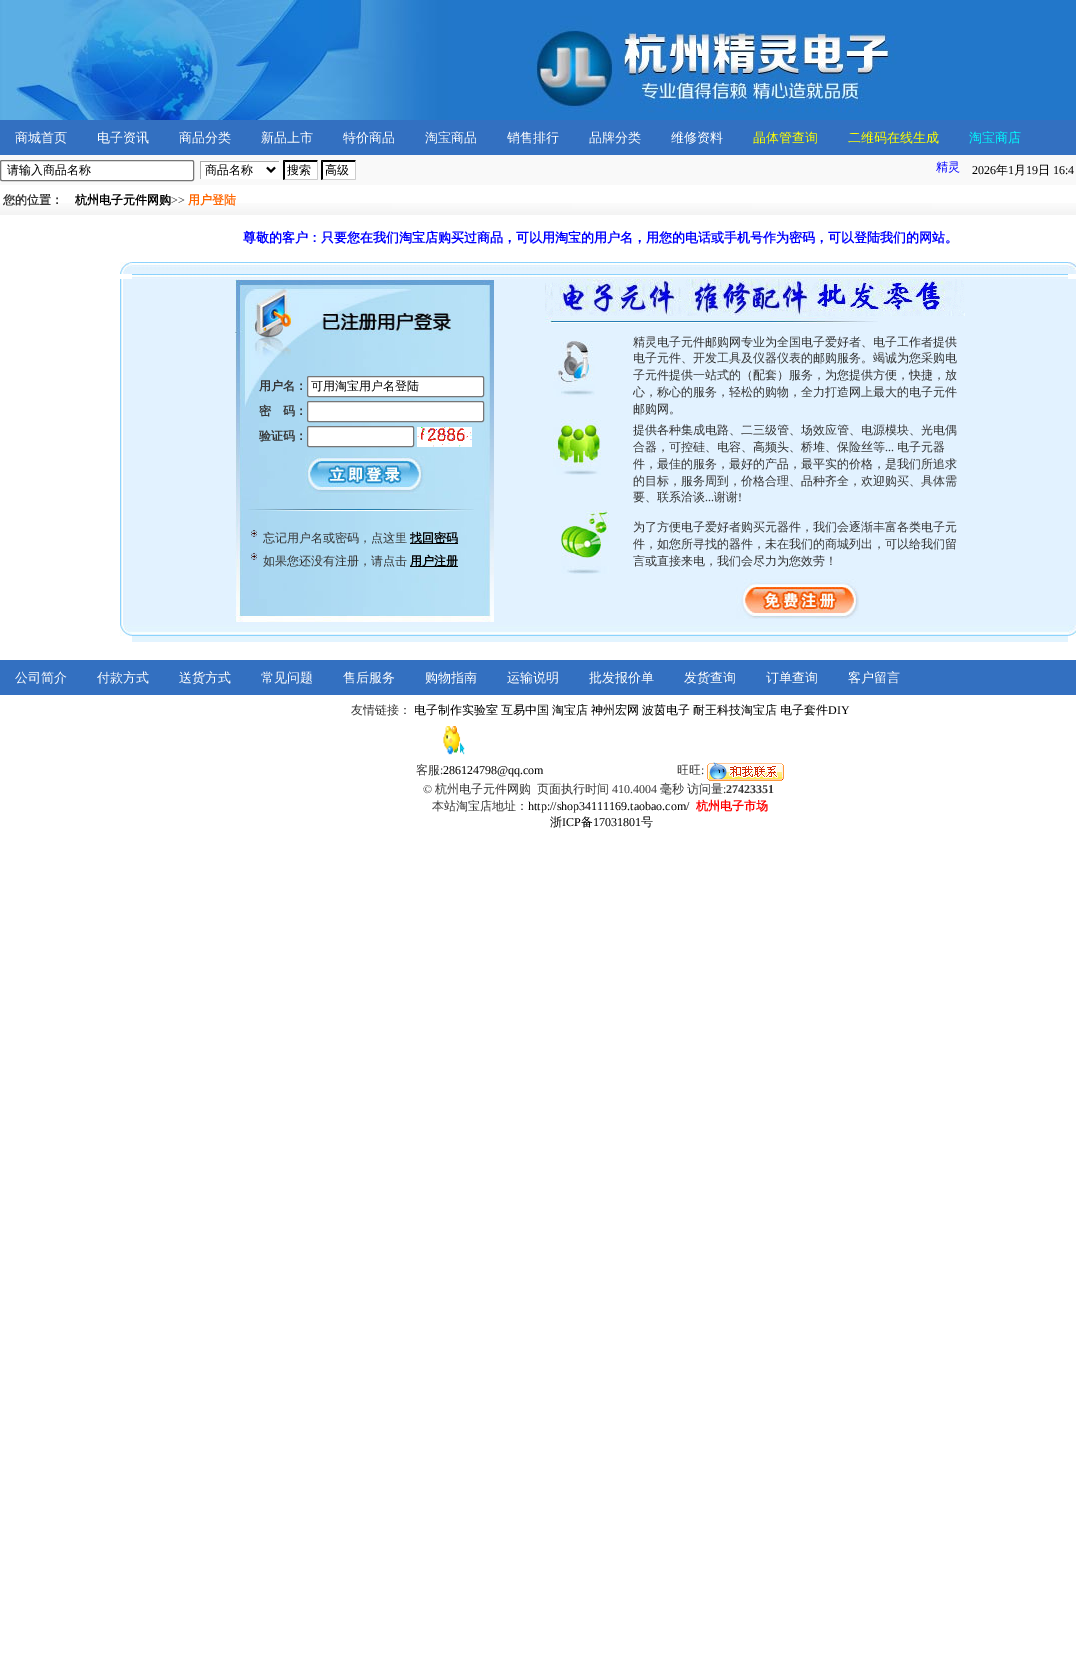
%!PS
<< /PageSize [1076 1662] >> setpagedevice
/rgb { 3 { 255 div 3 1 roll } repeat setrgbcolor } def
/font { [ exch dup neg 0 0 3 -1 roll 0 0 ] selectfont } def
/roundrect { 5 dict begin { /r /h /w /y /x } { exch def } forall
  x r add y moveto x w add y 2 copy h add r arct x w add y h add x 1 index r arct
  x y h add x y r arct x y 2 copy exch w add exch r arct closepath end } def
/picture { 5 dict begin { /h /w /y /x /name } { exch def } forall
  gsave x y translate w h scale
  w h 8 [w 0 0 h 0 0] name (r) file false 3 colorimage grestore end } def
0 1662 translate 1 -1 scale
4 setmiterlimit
255 255 255 rgb
0 0 1076 1662 rectfill
(img/1.rgb) 0 0 1076 120 picture
51 112 193 rgb
0 120 1076 35 rectfill
249 249 249 rgb
0 155 1076 30 rectfill
255 255 255 rgb
0.5 160.5 193 20 1.5 roundrect gsave fill grestore
118 118 118 rgb
stroke
[
  [201 162 78 17 255 255 255]
  [200 161 80 1 170 170 170]
  [279 161 1 18 255 255 255]
  [200 161 1 18 170 170 170]
] { aload pop rgb rectfill } forall
0 0 0 rgb
2 setlinewidth
267 167.5 moveto 271 171.5 lineto 275 167.5 lineto stroke
255 255 255 rgb
283 160 35 20 rectfill
0 0 0 rgb
283 160 moveto 318 160 lineto 317 162 lineto 285 162 lineto closepath fill
204 204 204 rgb
318 160 moveto 318 180 lineto 317 179 lineto 317 162 lineto closepath fill
318 180 moveto 283 180 lineto 285 179 lineto 317 179 lineto closepath fill
0 0 0 rgb
283 180 moveto 283 160 lineto 285 162 lineto 285 179 lineto closepath fill
255 255 255 rgb
321 160 35 20 rectfill
0 0 0 rgb
321 160 moveto 356 160 lineto 355 162 lineto 323 162 lineto closepath fill
204 204 204 rgb
356 160 moveto 356 180 lineto 355 179 lineto 355 162 lineto closepath fill
356 180 moveto 321 180 lineto 323 179 lineto 355 179 lineto closepath fill
0 0 0 rgb
321 180 moveto 321 160 lineto 323 162 lineto 323 179 lineto closepath fill
(img/2.rgb) 0 203 1076 12 picture
(img/3.rgb) 120 262 12 12 picture
(img/4.rgb) 132 262 936 17 picture
(img/5.rgb) 1068 262 8 12 picture
(img/6.rgb) 120 279 12 346 picture
226 242 255 rgb
132 279 944 346 rectfill
(img/7.rgb) 235 279 259 343 picture
255 255 255 rgb
307.5 376.5 176 20 1.5 roundrect gsave fill grestore
118 118 118 rgb
1 setlinewidth
stroke
255 255 255 rgb
307.5 401.5 176 20 1.5 roundrect gsave fill grestore
118 118 118 rgb
stroke
255 255 255 rgb
307.5 426.5 106 20 1.5 roundrect gsave fill grestore
118 118 118 rgb
stroke
(img/8.rgb) 417 427 55 20 picture
(img/9.rgb) 305 456 120 38 picture
(img/10.rgb) 248 508 226 4 picture
(img/11.rgb) 251 530 6 7 picture
0 0 0 rgb
410 543 48 1 rectfill
(img/12.rgb) 251 553 6 7 picture
410 566 48 1 rectfill
(img/13.rgb) 545 279 420 37 picture
(img/14.rgb) 545 316 333 8 picture
(img/15.rgb) 553 341 42 56 picture
(img/16.rgb) 553 419 48 56 picture
(img/17.rgb) 561 510 48 64 picture
(img/18.rgb) 736 579 123 40 picture
(img/19.rgb) 120 625 12 11 picture
(img/20.rgb) 132 625 936 17 picture
(img/21.rgb) 1068 625 8 11 picture
51 112 193 rgb
0 660 1076 35 rectfill
(img/22.rgb) 443 726 22 29 picture
(img/23.rgb) 707 762 77 19 picture
/WenQuanYiZenHei-Medium 13 font
255 255 255 rgb
[
  [(商城首页) 15 142]
  [(电子资讯) 97 142]
  [(商品分类) 179 142]
  [(新品上市) 261 142]
  [(特价商品) 343 142]
  [(淘宝商品) 425 142]
  [(销售排行) 507 142]
  [(品牌分类) 589 142]
  [(维修资料) 671 142]
] { aload pop moveto show } forall
255 255 0 rgb
753 142 moveto (晶体管查询) show
848 142 moveto (二维码在线生成) show
0 255 255 rgb
969 142 moveto (淘宝商店) show
/WenQuanYiZenHei-Medium 12 font
0 0 0 rgb
[
  [(请输入商品名称) 7 174]
  [(商品名称) 205 174]
  [(搜索) 287 174]
  [(高级) 325 174]
] { aload pop moveto show } forall
0 0 255 rgb
936 171 moveto (精灵) show
/LiberationSerif-Regular 12 font
0 0 0 rgb
972 174 moveto (2026) show
/WenQuanYiZenHei-Medium 12 font
996 174 moveto (年) show
/LiberationSerif-Regular 12 font
1008 174 moveto (1) show
/WenQuanYiZenHei-Medium 12 font
1014 174 moveto (月) show
/LiberationSerif-Regular 12 font
1026 174 moveto (19) show
/WenQuanYiZenHei-Medium 12 font
1038 174 moveto (日) show
/LiberationSerif-Regular 12 font
1053 174 moveto (16:4) show
/WenQuanYiZenHei-Bold 12 font
53 53 53 rgb
3 204 moveto (您的位置：) show
0 0 0 rgb
75 204 moveto (杭州电子元件网购) show
/LiberationSerif-Regular 12 font
53 53 53 rgb
171 204 moveto (>>) show
/WenQuanYiZenHei-Bold 12 font
255 102 0 rgb
188 204 moveto (用户登陆) show
/WenQuanYiZenHei-Bold 13 font
0 0 255 rgb
243 242 moveto (尊敬的客户：只要您在我们淘宝店购买过商品，可以用淘宝的用户名，用您的电话或手机号作为密码，可以登陆我们的网站。) show
/WenQuanYiZenHei-Bold 12 font
53 53 53 rgb
259 390 moveto (用户名：) show
/WenQuanYiZenHei-Medium 12 font
0 0 0 rgb
311 390 moveto (可用淘宝用户名登陆) show
/WenQuanYiZenHei-Bold 12 font
53 53 53 rgb
259 415 moveto (密　码：) show
259 440 moveto (验证码：) show
/WenQuanYiZenHei-Medium 12 font
263 542 moveto (忘记用户名或密码，点这里) show
/WenQuanYiZenHei-Bold 12 font
0 0 0 rgb
410 542 moveto (找回密码) show
/WenQuanYiZenHei-Medium 12 font
53 53 53 rgb
263 565 moveto (如果您还没有注册，请点击) show
/WenQuanYiZenHei-Bold 12 font
0 0 0 rgb
410 565 moveto (用户注册) show
/WenQuanYiZenHei-Medium 12 font
53 53 53 rgb
[
  [(精灵电子元件邮购网专业为全国电子爱好者、电子工作者提供) 633 346]
  [(电子元件、开发工具及仪器仪表的邮购服务。竭诚为您采购电) 633 362]
  [(子元件提供一站式的（配套）服务，为您提供方便，快捷，放) 633 379]
  [(心，称心的服务，轻松的购物，全力打造网上最大的电子元件) 633 396]
  [(邮购网。) 633 413]
  [(提供各种集成电路、二三级管、场效应管、电源模块、光电偶) 633 434]
  [(合器，可控硅、电容、高频头、桥堆、保险丝等) 633 451]
] { aload pop moveto show } forall
/LiberationSerif-Regular 12 font
885 451 moveto (...) show
/WenQuanYiZenHei-Medium 12 font
[
  [(电子元器) 897 451]
  [(件，最佳的服务，最好的产品，最平实的价格，是我们所追求) 633 468]
  [(的目标，服务周到，价格合理、品种齐全，欢迎购买、具体需) 633 485]
  [(要、联系洽谈) 633 501]
] { aload pop moveto show } forall
/LiberationSerif-Regular 12 font
705 501 moveto (...) show
/WenQuanYiZenHei-Medium 12 font
714 501 moveto (谢谢) show
/LiberationSerif-Regular 12 font
738 501 moveto (!) show
/WenQuanYiZenHei-Medium 12 font
[
  [(为了方便电子爱好者购买元器件，我们会逐渐丰富各类电子元) 633 531]
  [(件，如您所寻找的器件，未在我们的商城列出，可以给我们留) 633 548]
  [(言或直接来电，我们会尽力为您效劳！) 633 565]
] { aload pop moveto show } forall
/WenQuanYiZenHei-Medium 13 font
255 255 255 rgb
[
  [(公司简介) 15 682]
  [(付款方式) 97 682]
  [(送货方式) 179 682]
  [(常见问题) 261 682]
  [(售后服务) 343 682]
  [(购物指南) 425 682]
  [(运输说明) 507 682]
  [(批发报价单) 589 682]
  [(发货查询) 684 682]
  [(订单查询) 766 682]
  [(客户留言) 848 682]
] { aload pop moveto show } forall
/WenQuanYiZenHei-Medium 12 font
53 53 53 rgb
351 714 moveto (友情链接：) show
0 0 0 rgb
[
  [(电子制作实验室) 414 714]
  [(互易中国) 501 714]
  [(淘宝店) 552 714]
  [(神州宏网) 591 714]
  [(波茵电子) 642 714]
  [(耐王科技淘宝店) 693 714]
  [(电子套件) 780 714]
] { aload pop moveto show } forall
/LiberationSerif-Regular 12 font
828 714 moveto (DIY) show
/WenQuanYiZenHei-Medium 12 font
53 53 53 rgb
416 774 moveto (客服) show
/LiberationSerif-Regular 12 font
440 774 moveto (:) show
0 0 0 rgb
443 774 moveto (286124798@qq.com) show
/WenQuanYiZenHei-Medium 12 font
53 53 53 rgb
677 774 moveto (旺旺) show
/LiberationSerif-Regular 12 font
701 774 moveto (:) show
423 793 moveto (©) show
/WenQuanYiZenHei-Medium 12 font
435 793 moveto (杭州电子元件网购) show
537 793 moveto (页面执行时间) show
/LiberationSerif-Regular 12 font
612 793 moveto (410.4004) show
/WenQuanYiZenHei-Medium 12 font
660 793 moveto (毫秒) show
687 793 moveto (访问量) show
/LiberationSerif-Regular 12 font
723 793 moveto (:) show
/LiberationSerif-Bold 12 font
726 793 moveto (27423351) show
/WenQuanYiZenHei-Medium 12 font
432 810 moveto (本站淘宝店地址：) show
/LiberationSerif-Regular 12 font
0 0 0 rgb
528 810 moveto (http://shop34111169.taobao.com/) show
/WenQuanYiZenHei-Bold 12 font
255 0 0 rgb
696 810 moveto (杭州电子市场) show
/WenQuanYiZenHei-Medium 12 font
0 0 0 rgb
550 826 moveto (浙) show
/LiberationSerif-Regular 12 font
562 826 moveto (ICP) show
/WenQuanYiZenHei-Medium 12 font
581 826 moveto (备) show
/LiberationSerif-Regular 12 font
593 826 moveto (17031801) show
/WenQuanYiZenHei-Medium 12 font
641 826 moveto (号) show
showpage
